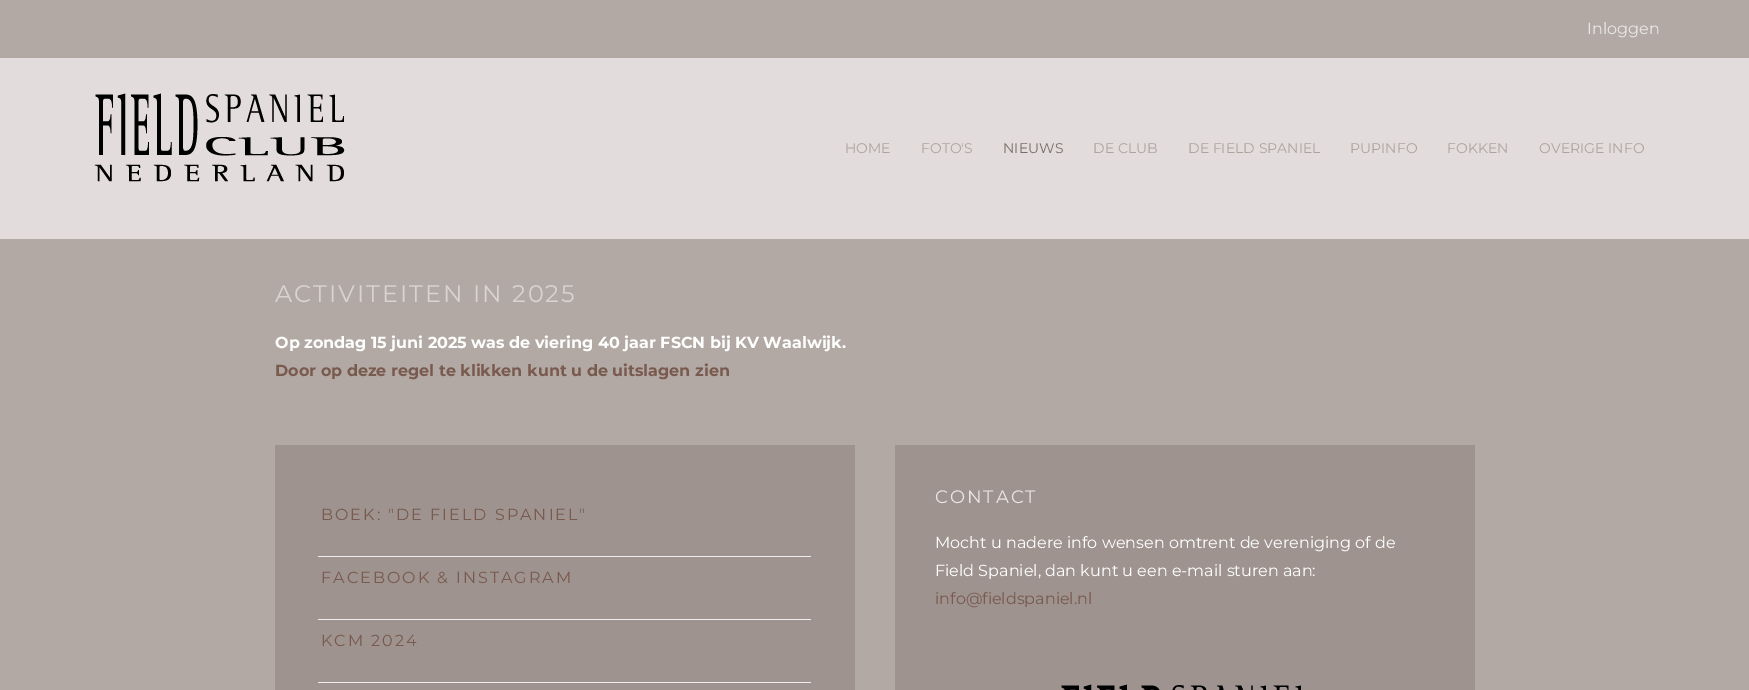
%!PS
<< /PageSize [1749 690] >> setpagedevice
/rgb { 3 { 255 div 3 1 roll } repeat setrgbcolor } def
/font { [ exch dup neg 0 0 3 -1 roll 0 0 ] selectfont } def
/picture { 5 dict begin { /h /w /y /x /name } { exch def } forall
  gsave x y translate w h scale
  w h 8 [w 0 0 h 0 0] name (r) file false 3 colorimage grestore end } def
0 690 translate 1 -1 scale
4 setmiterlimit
179 169 164 rgb
0 0 1749 690 rectfill
226 221 220 rgb
0 58 1749 181 rectfill
(img/1.rgb) 94 93 251 89 picture
[
  [275 445 580 245 158 147 143]
  [318 556 493 1 238 238 238]
  [318 619 493 1 238 238 238]
  [318 682 493 1 238 238 238]
  [895 445 580 245 158 147 143]
] { aload pop rgb rectfill } forall
(img/2.rgb) 1061 684 240 6 picture
/Montserrat-Regular 16 font
233 231 230 rgb
1587 34 moveto (Inloggen) show
/Montserrat-Regular 14 font
173 164 160 rgb
845 153 moveto (HOME) show
921 153 moveto (FOTO'S) show
120 110 105 rgb
1003 153 moveto (NIEUWS) show
173 164 160 rgb
[
  [(DE CLUB) 1093 153]
  [(DE FIELD SPANIEL) 1188 153]
  [(PUPINFO) 1350 153]
  [(FOKKEN) 1447 153]
  [(OVERIGE INFO) 1539 153]
] { aload pop moveto show } forall
/Montserrat-Regular 24 font
217 212 210 rgb
275 302 moveto 2 0 (ACTIVITEITEN IN 2025) ashow
/Montserrat-Bold 16 font
255 255 255 rgb
275 348 moveto (Op zondag 15 juni 2025 was de viering 40 jaar FSCN bij KV Waalwijk.) show
121 90 78 rgb
275 376 moveto (Door op deze regel te klikken kunt u de uitslagen zien) show
/Montserrat-Regular 16 font
321 520 moveto 2 0 (BOEK: "DE FIELD SPANIEL") ashow
321 583 moveto 2 0 (FACEBOOK & INSTAGRAM) ashow
321 646 moveto 2 0 (KCM 2024) ashow
/Montserrat-Regular 18 font
233 231 230 rgb
935 503 moveto 2 0 (CONTACT) ashow
/Montserrat-Regular 16 font
255 255 255 rgb
935 548 moveto (Mocht u nadere info wensen omtrent de vereniging of de) show
935 576 moveto (Field Spaniel, dan kunt u een e-mail sturen aan:) show
121 90 78 rgb
935 604 moveto (info@fieldspaniel.nl) show
showpage
